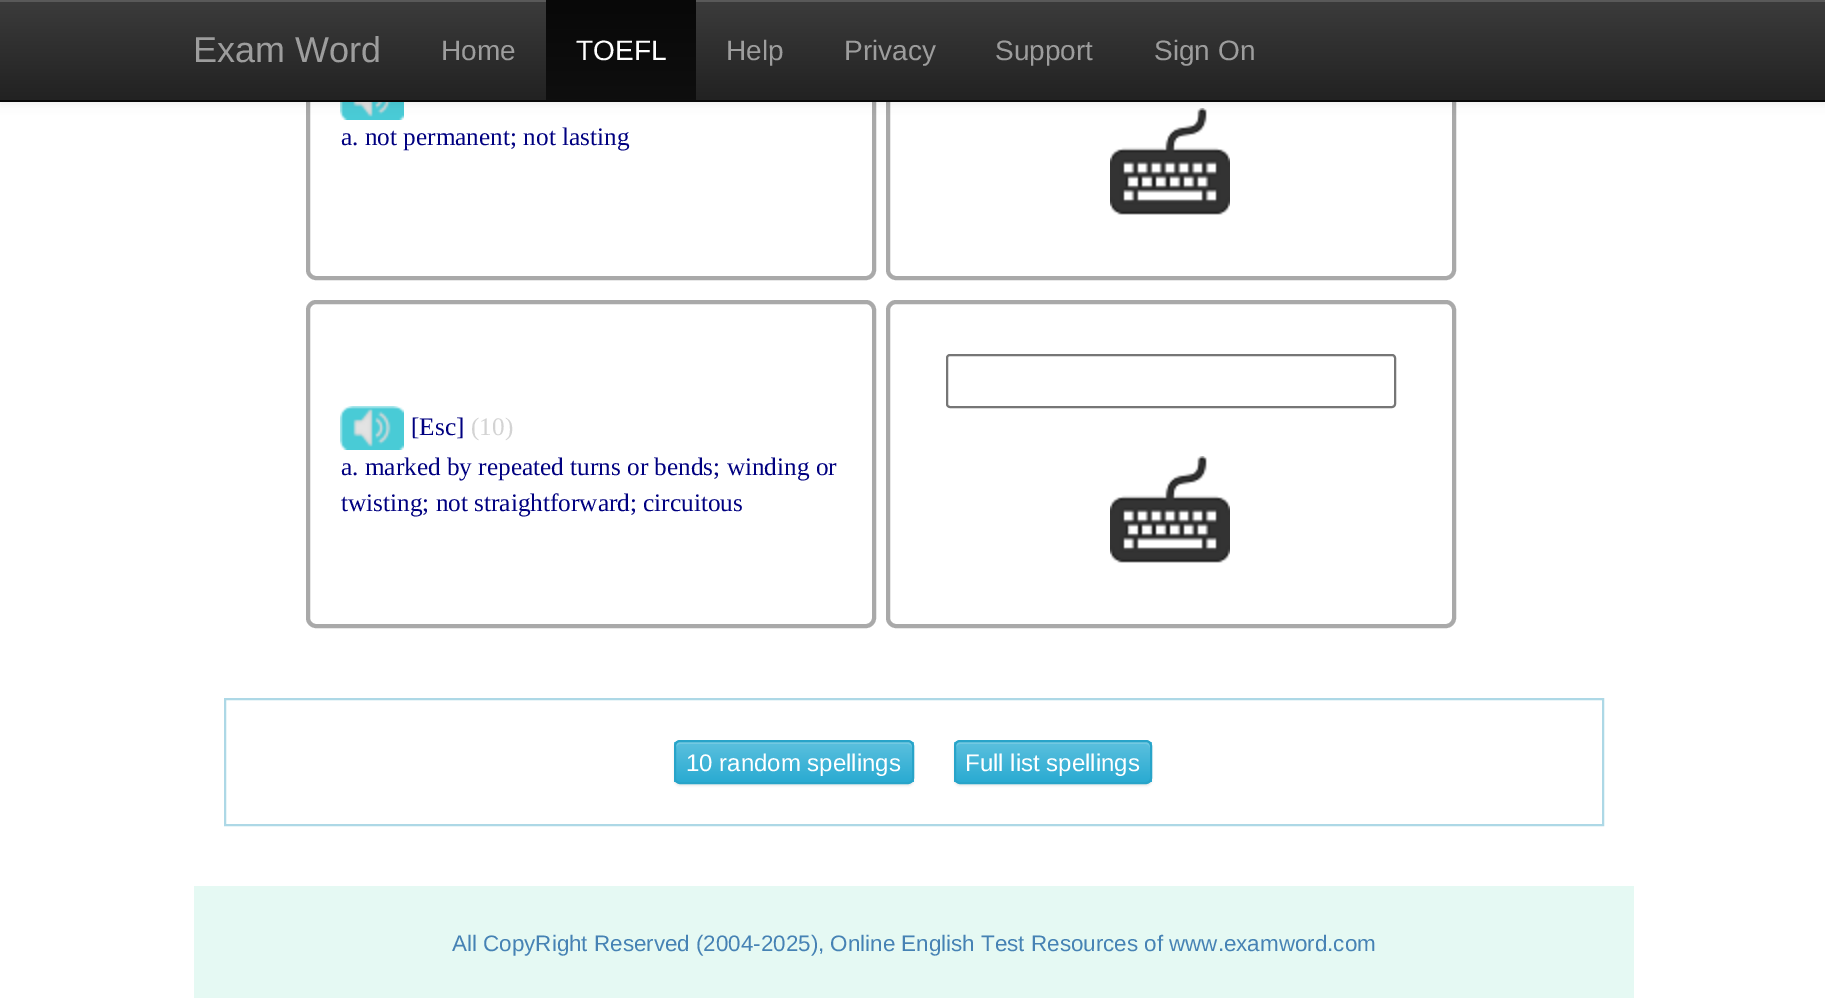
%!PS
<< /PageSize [1825 998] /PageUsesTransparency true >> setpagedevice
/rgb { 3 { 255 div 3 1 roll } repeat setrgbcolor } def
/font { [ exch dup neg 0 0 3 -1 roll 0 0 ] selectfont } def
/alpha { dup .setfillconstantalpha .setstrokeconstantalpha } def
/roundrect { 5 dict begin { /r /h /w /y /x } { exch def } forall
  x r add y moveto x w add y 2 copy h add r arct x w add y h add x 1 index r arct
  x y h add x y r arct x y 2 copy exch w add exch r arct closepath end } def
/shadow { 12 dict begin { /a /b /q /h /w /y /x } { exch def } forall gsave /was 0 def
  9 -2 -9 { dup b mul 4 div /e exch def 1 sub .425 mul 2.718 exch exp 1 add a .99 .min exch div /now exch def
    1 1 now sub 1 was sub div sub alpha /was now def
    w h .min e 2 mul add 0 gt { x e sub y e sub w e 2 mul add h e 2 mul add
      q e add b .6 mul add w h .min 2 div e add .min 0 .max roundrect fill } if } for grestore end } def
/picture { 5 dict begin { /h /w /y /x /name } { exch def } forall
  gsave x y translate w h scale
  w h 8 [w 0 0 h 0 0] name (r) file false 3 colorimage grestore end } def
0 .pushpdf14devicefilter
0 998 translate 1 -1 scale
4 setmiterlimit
255 255 255 rgb
0 0 1825 998 rectfill
169 169 169 rgb
4 setlinewidth
308 -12 566 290 8 roundrect stroke
(img/1.rgb) 340 102 64 18 picture
888 -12 566 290 8 roundrect stroke
(img/2.rgb) 1110 108 120 107 picture
0 0 0 rgb
0 2 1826 102 0 5 0.07 shadow
gsave 0 2 moveto 1825 2 lineto 1825 100 lineto 0 100 lineto closepath clip newpath
<< /ShadingType 2 /ColorSpace /DeviceRGB /Coords [913 0 913 100] /Extend [true true] /Function << /FunctionType 2 /Domain [0 1] /C0 [0.235 0.235 0.235] /C1 [0.133 0.133 0.133] /N 1 >> >> shfill grestore
89 89 89 rgb
0 0 1825 2 rectfill
8 8 8 rgb
0 100 1825 2 rectfill
gsave 546 0 moveto 696 0 lineto 696 100 lineto 546 100 lineto closepath clip newpath
<< /ShadingType 2 /ColorSpace /DeviceRGB /Coords [621 0 621 100] /Extend [true true] /Function << /FunctionType 2 /Domain [0 1] /C0 [0.031 0.031 0.031] /C1 [0.059 0.059 0.059] /N 1 >> >> shfill grestore
169 169 169 rgb
308 302 566 324 8 roundrect stroke
(img/3.rgb) 340 406 64 44 picture
888 302 566 324 8 roundrect stroke
118 118 118 rgb
2 setlinewidth
947 355 448 52 3 roundrect stroke
(img/2.rgb) 1110 456 120 107 picture
173 216 230 rgb
225 699 1378 126 rectstroke
0 0 0 rgb
674 742 240 44 6 1 0.07 shadow
gsave
674 740 240 44 6 roundrect clip newpath
gsave 674 742 moveto 914 742 lineto 914 782 lineto 674 782 lineto closepath clip newpath
<< /ShadingType 2 /ColorSpace /DeviceRGB /Coords [794 742 794 782] /Extend [true true] /Function << /FunctionType 2 /Domain [0 1] /C0 [0.357 0.753 0.871] /C1 [0.165 0.671 0.824] /N 1 >> >> shfill grestore
grestore
0.15 alpha
255 255 255 rgb
680 744 moveto 908 744 lineto 910 744 912 746 912 748 curveto 912 746 lineto 912 744 910 742 908 742 curveto 680 742 lineto 678 742 676 744 676 746 curveto 676 748 lineto 676 746 678 744 680 744 curveto closepath fill
1 alpha
40 164 201 rgb
675 741 238 42 5 roundrect stroke
0 0 0 rgb
954 742 198 44 6 1 0.07 shadow
gsave
954 740 198 44 6 roundrect clip newpath
gsave 954 742 moveto 1152 742 lineto 1152 782 lineto 954 782 lineto closepath clip newpath
<< /ShadingType 2 /ColorSpace /DeviceRGB /Coords [1053 742 1053 782] /Extend [true true] /Function << /FunctionType 2 /Domain [0 1] /C0 [0.357 0.753 0.871] /C1 [0.165 0.671 0.824] /N 1 >> >> shfill grestore
grestore
0.15 alpha
255 255 255 rgb
960 744 moveto 1146 744 lineto 1148 744 1150 746 1150 748 curveto 1150 746 lineto 1150 744 1148 742 1146 742 curveto 960 742 lineto 958 742 956 744 956 746 curveto 956 748 lineto 956 746 958 744 960 744 curveto closepath fill
1 alpha
40 164 201 rgb
955 741 196 42 5 roundrect stroke
229 249 243 rgb
194 886 1440 112 rectfill
/LiberationSans-Regular 36 font
157 157 157 rgb
193 62 moveto (Exam Word) show
/LiberationSans-Regular 28 font
441 60 moveto (Home) show
255 255 255 rgb
576 60 moveto (TOEFL) show
157 157 157 rgb
[
  [(Help) 726 60]
  [(Privacy) 844 60]
  [(Support) 995 60]
  [(Sign On) 1154 60]
] { aload pop moveto show } forall
/LiberationSerif-Regular 25.25 font
0 0 128 rgb
341 145 moveto (a. not permanent; not lasting) show
411 435 moveto ([Esc]) show
211 211 211 rgb
471 435 moveto (\(10\)) show
0 0 128 rgb
341 475 moveto (a. marked by repeated turns or bends; winding or) show
341 511 moveto (twisting; not straightforward; circuitous) show
/LiberationSans-Regular 24 font
255 255 255 rgb
686 771 moveto (10 random spellings) show
965 771 moveto (Full list spellings) show
/LiberationSans-Regular 22.4 font
70 130 180 rgb
452 951 moveto (All CopyRight Reserved \(2004-2025\), Online English Test Resources of www.examword.com) show
.poppdf14devicefilter showpage
